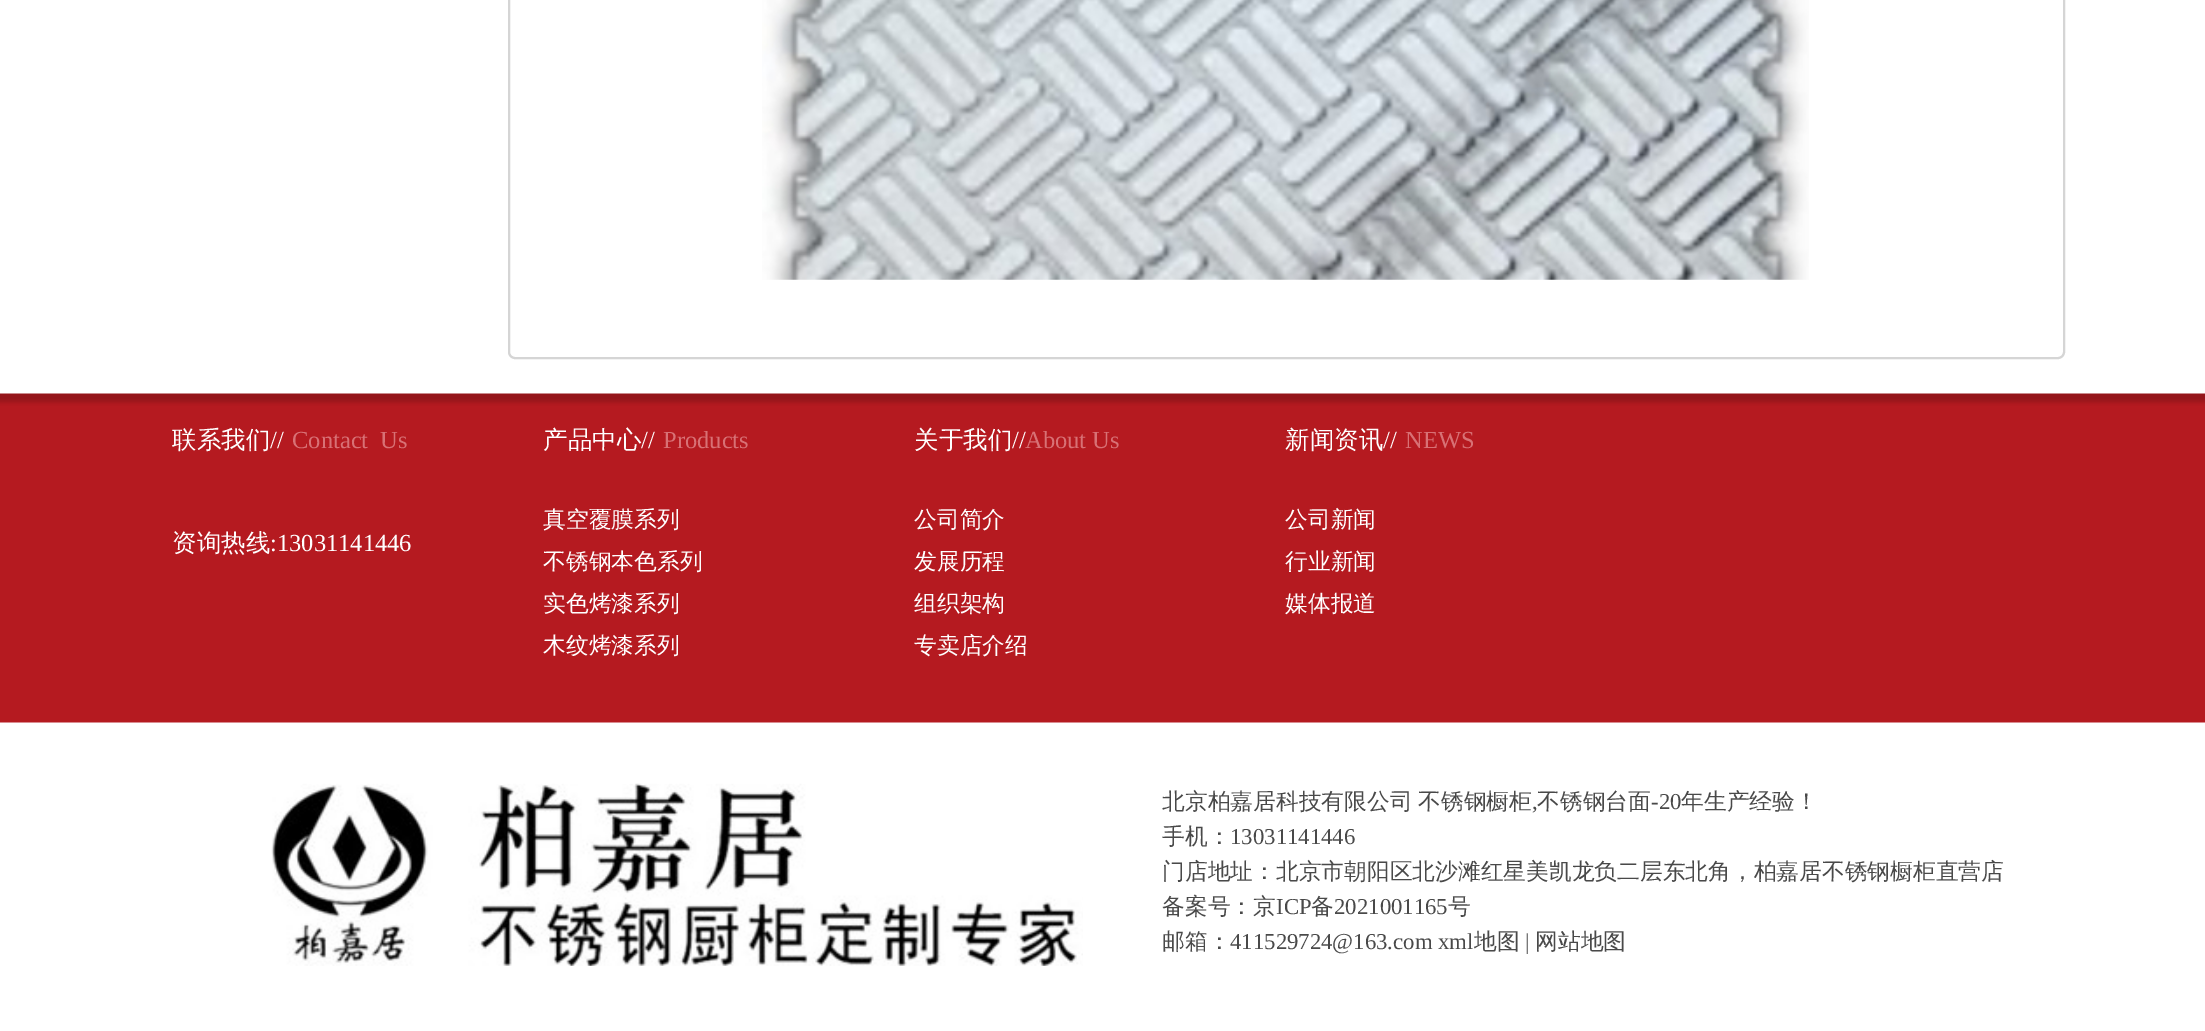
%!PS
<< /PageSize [2205 1031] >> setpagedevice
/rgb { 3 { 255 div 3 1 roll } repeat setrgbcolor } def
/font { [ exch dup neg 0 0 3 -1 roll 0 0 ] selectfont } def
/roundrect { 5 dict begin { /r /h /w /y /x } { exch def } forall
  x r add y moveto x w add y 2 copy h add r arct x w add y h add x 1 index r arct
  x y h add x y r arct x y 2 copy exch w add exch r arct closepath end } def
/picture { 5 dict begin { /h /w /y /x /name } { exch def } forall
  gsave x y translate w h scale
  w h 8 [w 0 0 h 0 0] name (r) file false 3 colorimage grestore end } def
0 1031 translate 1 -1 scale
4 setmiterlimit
255 255 255 rgb
0 0 2205 1031 rectfill
213 213 213 rgb
2 setlinewidth
509 -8 1555 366 6 roundrect stroke
(img/1.rgb) 762 0 1047 280 picture
(img/2.rgb) 0 393 2205 330 picture
(img/3.rgb) 271 783 812 183 picture
/WenQuanYiZenHei-Medium 24.5 font
255 255 255 rgb
172 448 moveto (联系我们) show
/LiberationSerif-Regular 24.5 font
270 448 moveto (//) show
216 113 117 rgb
292 448 moveto (Contact  Us) show
/WenQuanYiZenHei-Medium 24.5 font
255 255 255 rgb
172 551 moveto (资询热线) show
/LiberationSerif-Regular 24.5 font
270 551 moveto (:13031141446) show
/WenQuanYiZenHei-Medium 24.5 font
543 448 moveto (产品中心) show
/LiberationSerif-Regular 24.5 font
641 448 moveto (//) show
216 113 117 rgb
663 448 moveto (Products) show
/WenQuanYiZenHei-Medium 22.75 font
255 255 255 rgb
[
  [(真空覆膜系列) 543 527]
  [(不锈钢本色系列) 543 569]
  [(实色烤漆系列) 543 611]
  [(木纹烤漆系列) 543 653]
] { aload pop moveto show } forall
/WenQuanYiZenHei-Medium 24.5 font
914 448 moveto (关于我们) show
/LiberationSerif-Regular 24.5 font
1012 448 moveto (//) show
216 113 117 rgb
1025 448 moveto (About Us) show
/WenQuanYiZenHei-Medium 22.75 font
255 255 255 rgb
[
  [(公司简介) 914 527]
  [(发展历程) 914 569]
  [(组织架构) 914 611]
  [(专卖店介绍) 914 653]
] { aload pop moveto show } forall
/WenQuanYiZenHei-Medium 24.5 font
1285 448 moveto (新闻资讯) show
/LiberationSerif-Regular 24.5 font
1383 448 moveto (//) show
216 113 117 rgb
1405 448 moveto (NEWS) show
/WenQuanYiZenHei-Medium 22.75 font
255 255 255 rgb
[
  [(公司新闻) 1285 527]
  [(行业新闻) 1285 569]
  [(媒体报道) 1285 611]
] { aload pop moveto show } forall
73 73 73 rgb
1162 809 moveto -1 0 32 (北京柏嘉居科技有限公司 不锈钢橱柜) widthshow
/LiberationSerif-Regular 22.75 font
1532 809 moveto (,) show
/WenQuanYiZenHei-Medium 22.75 font
1537 809 moveto (不锈钢台面) show
/LiberationSerif-Regular 22.75 font
1651 809 moveto (-20) show
/WenQuanYiZenHei-Medium 22.75 font
1681 809 moveto (年生产经验！) show
1162 844 moveto (手机：) show
/LiberationSerif-Regular 22.75 font
1230 844 moveto (13031141446) show
/WenQuanYiZenHei-Medium 22.75 font
1162 879 moveto (门店地址：北京市朝阳区北沙滩红星美凯龙负二层东北角，柏嘉居不锈钢橱柜直营店) show
1162 914 moveto (备案号：京) show
/LiberationSerif-Regular 22.75 font
1276 914 moveto (ICP) show
/WenQuanYiZenHei-Medium 22.75 font
1311 914 moveto (备) show
/LiberationSerif-Regular 22.75 font
1334 914 moveto (2021001165) show
/WenQuanYiZenHei-Medium 22.75 font
1448 914 moveto (号) show
1162 949 moveto (邮箱：) show
/LiberationSerif-Regular 22.75 font
1230 949 moveto (411529724@163.com xml) show
/WenQuanYiZenHei-Medium 22.75 font
1474 949 moveto (地图) show
/LiberationSerif-Regular 22.75 font
1525 949 moveto (|) show
/WenQuanYiZenHei-Medium 22.75 font
1535 949 moveto (网站地图) show
showpage
